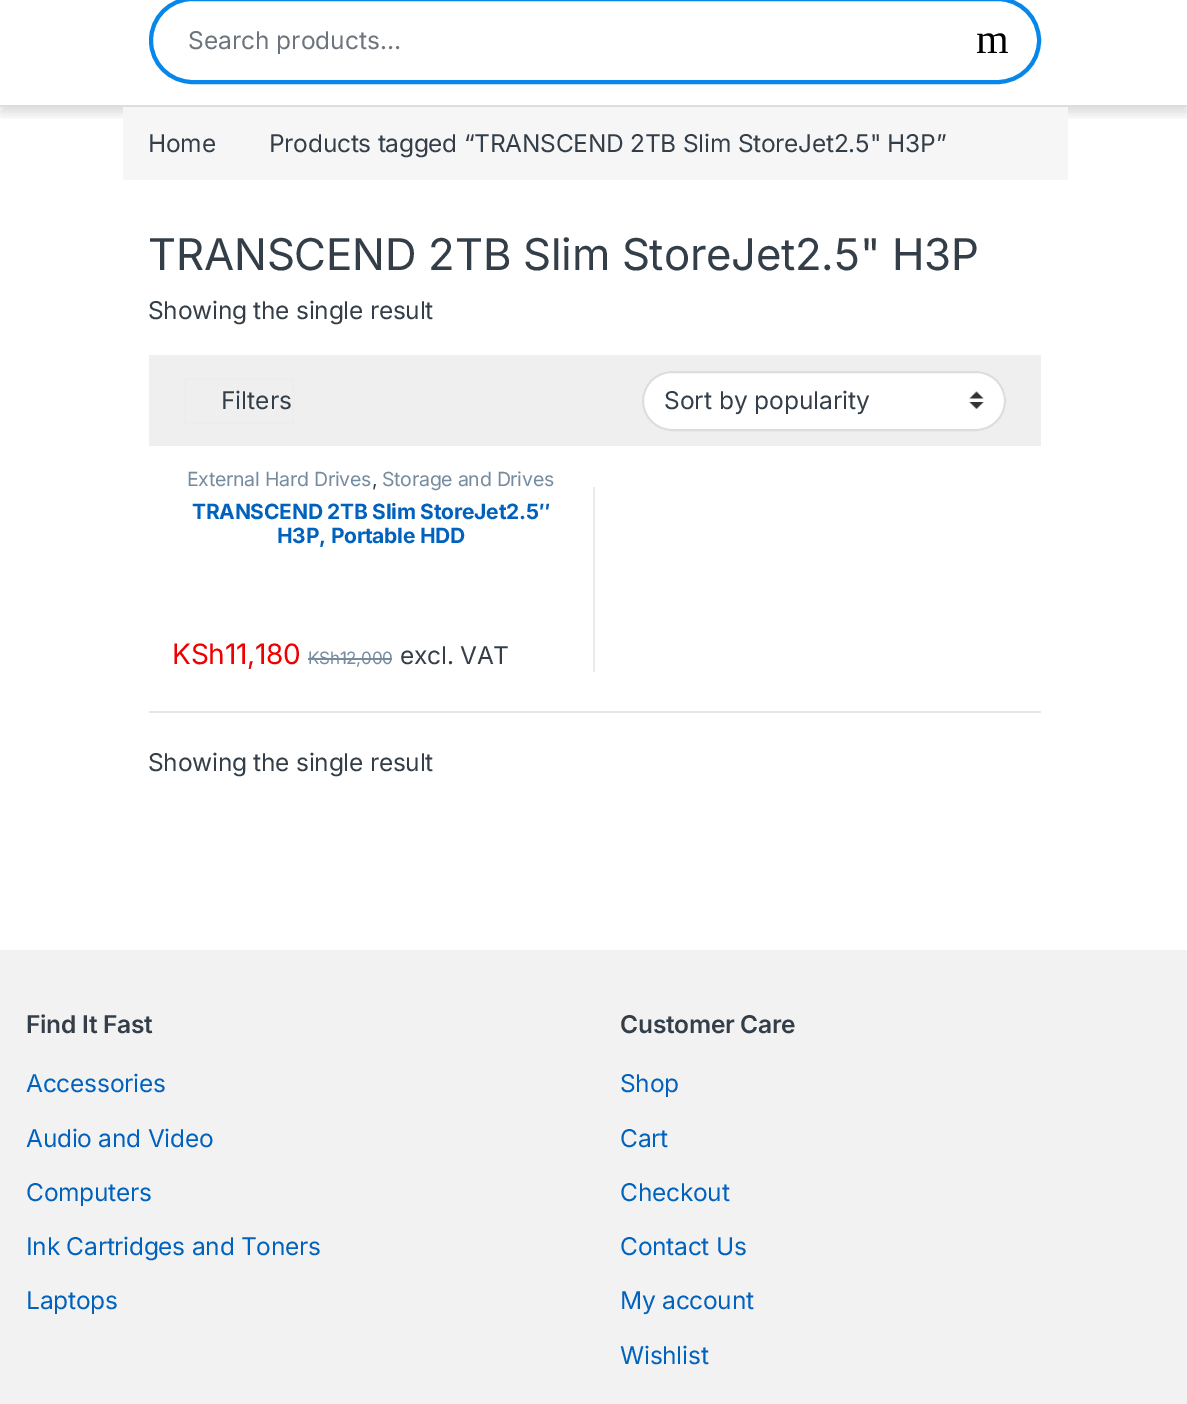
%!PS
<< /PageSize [1187 1404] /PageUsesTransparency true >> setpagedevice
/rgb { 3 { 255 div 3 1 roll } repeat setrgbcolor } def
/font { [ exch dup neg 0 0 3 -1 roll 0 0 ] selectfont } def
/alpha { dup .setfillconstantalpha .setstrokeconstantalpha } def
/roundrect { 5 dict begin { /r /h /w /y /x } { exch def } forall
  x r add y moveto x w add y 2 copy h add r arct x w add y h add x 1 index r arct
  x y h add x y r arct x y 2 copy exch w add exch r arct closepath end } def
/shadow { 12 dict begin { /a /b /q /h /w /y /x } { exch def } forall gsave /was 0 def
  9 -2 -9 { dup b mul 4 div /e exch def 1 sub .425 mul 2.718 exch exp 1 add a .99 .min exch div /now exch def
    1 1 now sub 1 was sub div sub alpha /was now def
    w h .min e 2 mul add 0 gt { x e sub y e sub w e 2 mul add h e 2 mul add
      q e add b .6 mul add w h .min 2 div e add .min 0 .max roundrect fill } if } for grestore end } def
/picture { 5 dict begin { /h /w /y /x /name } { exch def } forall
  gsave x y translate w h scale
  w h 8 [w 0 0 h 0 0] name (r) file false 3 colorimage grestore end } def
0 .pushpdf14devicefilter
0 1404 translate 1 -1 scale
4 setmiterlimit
255 255 255 rgb
0 0 1187 1404 rectfill
gsave
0 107 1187 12 rectclip
0 0 0 rgb
0 -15 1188 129 0 5 0.12 shadow
grestore
221 221 221 rgb
0 105 1187 2 rectfill
7 135 234 rgb
4 setlinewidth
151 -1 888 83 41.5 roundrect stroke
247 246 246 rgb
123 107 945 73 rectfill
239 239 239 rgb
149 355 892 91 rectfill
239 236 236 rgb
2 setlinewidth
185 379 108 44 rectstroke
255 255 255 rgb
642 371 364 60 30 roundrect fill
(img/1.rgb) 969 391 15 18 picture
221 221 221 rgb
643 372 362 58 29 roundrect stroke
[
  [308 658 84 2 118 139 158]
  [593 487 2 185 234 234 234]
  [149 711 892 2 231 231 231]
  [0 950 1187 454 242 242 242]
] { aload pop rgb rectfill } forall
/Inter-Regular 24.5 font
108 117 125 rgb
188 49 moveto (Search products…) show
/LiberationSerif-Regular 42 font
0 0 0 rgb
976 53 moveto (m) show
/Inter-Regular 24.5 font
51 62 72 rgb
148 152 moveto -0.25 0 (Home) ashow
269 152 moveto -0.25 0 (Products tagged “TRANSCEND 2TB Slim StoreJet2.5" H3P”) ashow
/Inter-Regular 43.75 font
148 270 moveto -0.25 0 (TRANSCEND 2TB Slim StoreJet2.5" H3P) ashow
/Inter-Regular 24.5 font
148 319 moveto -0.25 0 (Showing the single result) ashow
221 409 moveto (Filters) show
664 409 moveto (Sort by popularity) show
/Inter-Regular 19.5 font
118 139 158 rgb
187 486 moveto -0.25 0 (External Hard Drives) ashow
51 62 72 rgb
372 486 moveto -0.25 0 (,) ashow
118 139 158 rgb
382 486 moveto -0.25 0 (Storage and Drives) ashow
/Inter-Bold 21 font
0 98 189 rgb
192 519 moveto -0.25 0 (TRANSCEND 2TB Slim StoreJet2.5″) ashow
277 543 moveto -0.25 0 (H3P, Portable HDD) ashow
/Inter-Regular 28 font
238 0 0 rgb
172 664 moveto -0.25 0 (KSh11,180) ashow
/Inter-Regular 17 font
118 139 158 rgb
308 664 moveto -0.25 0 (KSh12,000) ashow
/Inter-Regular 24.5 font
51 62 72 rgb
400 664 moveto -0.25 0 (excl. VAT) ashow
148 771 moveto -0.25 0 (Showing the single result) ashow
/Inter-SemiBold 24.5 font
26 1033 moveto -0.25 0 (Find It Fast) ashow
/Inter-Regular 24.5 font
0 98 189 rgb
26 1092 moveto -0.25 0 (Accessories) ashow
26 1147 moveto -0.25 0 (Audio and Video) ashow
26 1201 moveto -0.25 0 (Computers) ashow
26 1255 moveto -0.25 0 (Ink Cartridges and Toners) ashow
26 1309 moveto -0.25 0 (Laptops) ashow
/Inter-SemiBold 24.5 font
51 62 72 rgb
620 1033 moveto -0.25 0 (Customer Care) ashow
/Inter-Regular 24.5 font
0 98 189 rgb
620 1092 moveto -0.25 0 (Shop) ashow
620 1147 moveto -0.25 0 (Cart) ashow
620 1201 moveto -0.25 0 (Checkout) ashow
620 1255 moveto -0.25 0 (Contact Us) ashow
620 1309 moveto -0.25 0 (My account) ashow
620 1364 moveto -0.25 0 (Wishlist) ashow
.poppdf14devicefilter showpage
